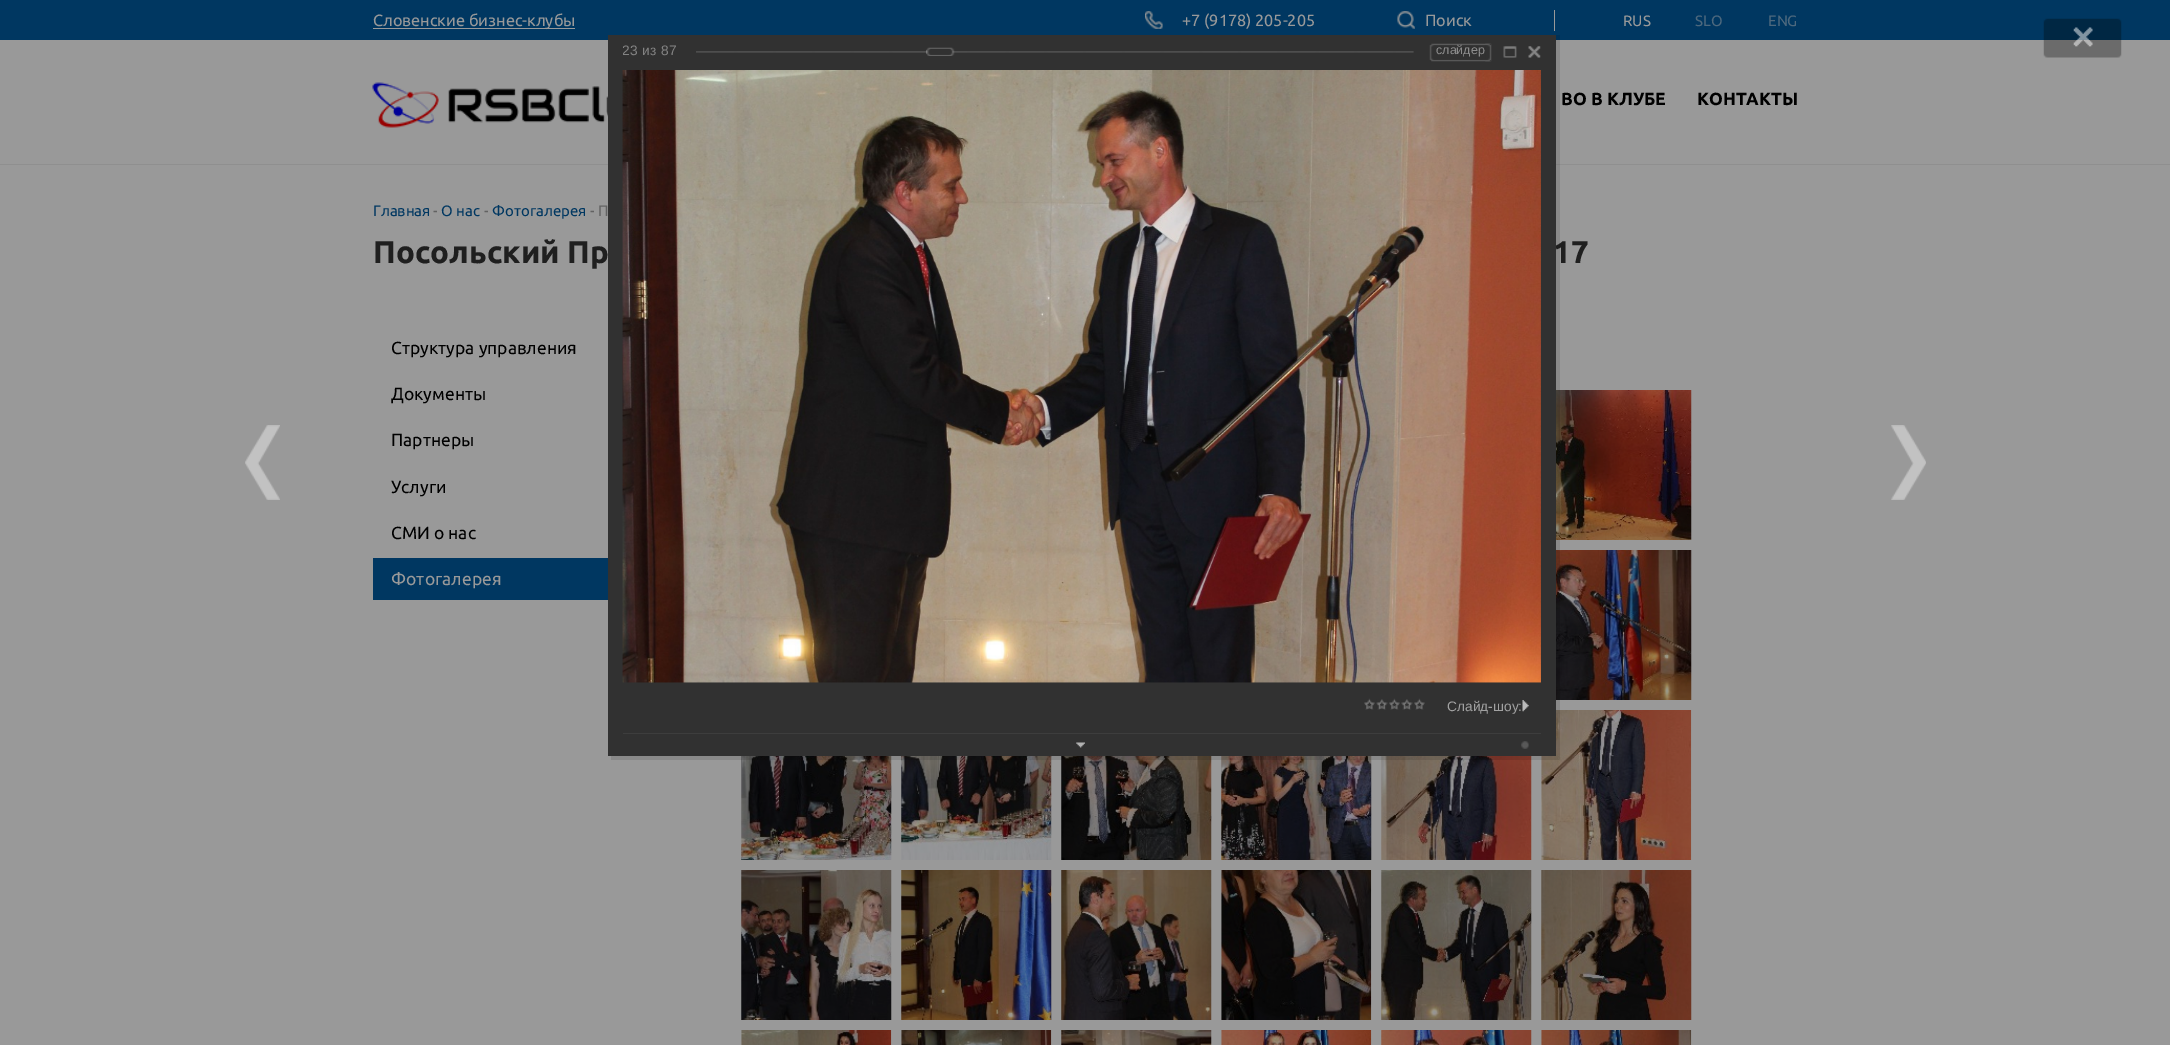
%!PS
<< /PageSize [2170 1045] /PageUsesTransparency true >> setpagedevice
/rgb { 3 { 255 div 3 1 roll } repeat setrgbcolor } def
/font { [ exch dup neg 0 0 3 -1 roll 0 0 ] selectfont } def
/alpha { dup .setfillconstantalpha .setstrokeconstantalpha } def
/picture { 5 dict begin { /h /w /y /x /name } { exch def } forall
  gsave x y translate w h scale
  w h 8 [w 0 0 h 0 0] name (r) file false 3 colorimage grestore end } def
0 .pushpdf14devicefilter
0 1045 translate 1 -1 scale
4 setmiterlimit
153 153 153 rgb
0 0 2170 1045 rectfill
0 55 97 rgb
0 0 2170 40 rectfill
153 153 153 rgb
373 28 202 1 rectfill
(img/1.rgb) 1145 11 18 18 picture
(img/2.rgb) 1397 11 18 18 picture
1554 10 1 21 rectfill
143 143 143 rgb
0 164 2170 1 rectfill
(img/3.rgb) 372 82 236 46 picture
0 55 97 rgb
373 558 235 42 rectfill
(img/4.rgb) 1556 390 136 150 picture
(img/5.rgb) 1556 550 136 150 picture
(img/6.rgb) 741 756 151 104 picture
(img/7.rgb) 901 756 151 104 picture
(img/8.rgb) 1061 756 151 104 picture
(img/9.rgb) 1221 756 151 104 picture
(img/10.rgb) 1381 756 151 104 picture
(img/11.rgb) 1541 710 151 150 picture
(img/12.rgb) 741 870 151 150 picture
(img/13.rgb) 901 870 151 150 picture
(img/14.rgb) 1061 870 151 150 picture
(img/15.rgb) 1221 870 151 150 picture
(img/16.rgb) 1381 870 151 150 picture
(img/17.rgb) 1541 870 151 150 picture
(img/18.rgb) 741 1030 151 15 picture
(img/19.rgb) 901 1030 151 15 picture
(img/20.rgb) 1061 1030 151 15 picture
(img/21.rgb) 1221 1030 151 15 picture
(img/22.rgb) 1381 1030 151 15 picture
(img/23.rgb) 1541 1030 151 15 picture
(img/24.rgb) 245 425 35 75 picture
0.1 alpha
0 0 0 rgb
611 35 949 725 rectfill
1 alpha
(img/38.rgb) 2043 18 79 40 picture
(img/39.rgb) 1891 425 35 75 picture
/Ubuntu-Regular 16.25 font
153 153 153 rgb
[
  [(Словенские бизнес-клубы) 373 26]
  [(+7 \(9178\) 205-205) 1182 26]
  [(Поиск) 1425 26]
] { aload pop moveto show } forall
/Ubuntu-Regular 15 font
1623 26 moveto (RUS) show
77 104 125 rgb
1695 26 moveto (SLO) show
1768 26 moveto (ENG) show
/Ubuntu-Bold 17.5 font
0 0 0 rgb
1561 105 moveto (ВО В КЛУБЕ) show
1697 105 moveto (КОНТАКТЫ) show
/Ubuntu-Regular 15 font
0 55 97 rgb
373 216 moveto (Главная) show
98 98 98 rgb
433 216 moveto (-) show
0 55 97 rgb
441 216 moveto (О нас) show
98 98 98 rgb
484 216 moveto (-) show
0 55 97 rgb
492 216 moveto (Фотогалерея) show
98 98 98 rgb
590 216 moveto (- П) show
/Ubuntu-Bold 31.25 font
31 31 31 rgb
373 263 moveto (Посольский Пр) show
1553 263 moveto (17) show
/Ubuntu-Regular 17.5 font
0 0 0 rgb
[
  [(Структура управления) 391 354]
  [(Документы) 391 400]
  [(Партнеры) 391 446]
  [(Услуги) 391 493]
  [(СМИ о нас) 391 539]
] { aload pop moveto show } forall
153 153 153 rgb
391 585 moveto (Фотогалерея) show
49 49 49 rgb
608 35 948 721 rectfill
gsave
623 35 918 35 rectclip
/LiberationSans-Regular 13.75 font
131 131 131 rgb
622 55 moveto (23) show
grestore
/LiberationSans-Regular 13.75 font
131 131 131 rgb
642 55 moveto (из) show
661 55 moveto (87) show
(img/25.rgb) 696 51 718 2 picture
(img/26.rgb) 926 47 29 9 picture
(img/27.rgb) 1429 43 63 19 picture
/LiberationSans-Regular 12.5 font
140 140 140 rgb
1436 54 moveto (слайдер) show
(img/28.rgb) 1485 43 7 19 picture
(img/29.rgb) 1503 46 14 12 picture
(img/30.rgb) 1528 46 13 12 picture
(img/31.rgb) 622 70 919 613 picture
61 61 61 rgb
623 733 918 1 rectfill
(img/32.rgb) 1364 698 11 12 picture
(img/33.rgb) 1376 699 12 11 picture
(img/32.rgb) 1389 698 11 12 picture
(img/34.rgb) 1401 699 12 11 picture
(img/32.rgb) 1414 698 11 12 picture
/LiberationSans-Regular 13.75 font
162 162 162 rgb
1447 711 moveto (Слайд-шоу:) show
(img/35.rgb) 1522 700 7 12 picture
(img/36.rgb) 1076 742 9 6 picture
(img/37.rgb) 1521 741 8 8 picture
.poppdf14devicefilter showpage
